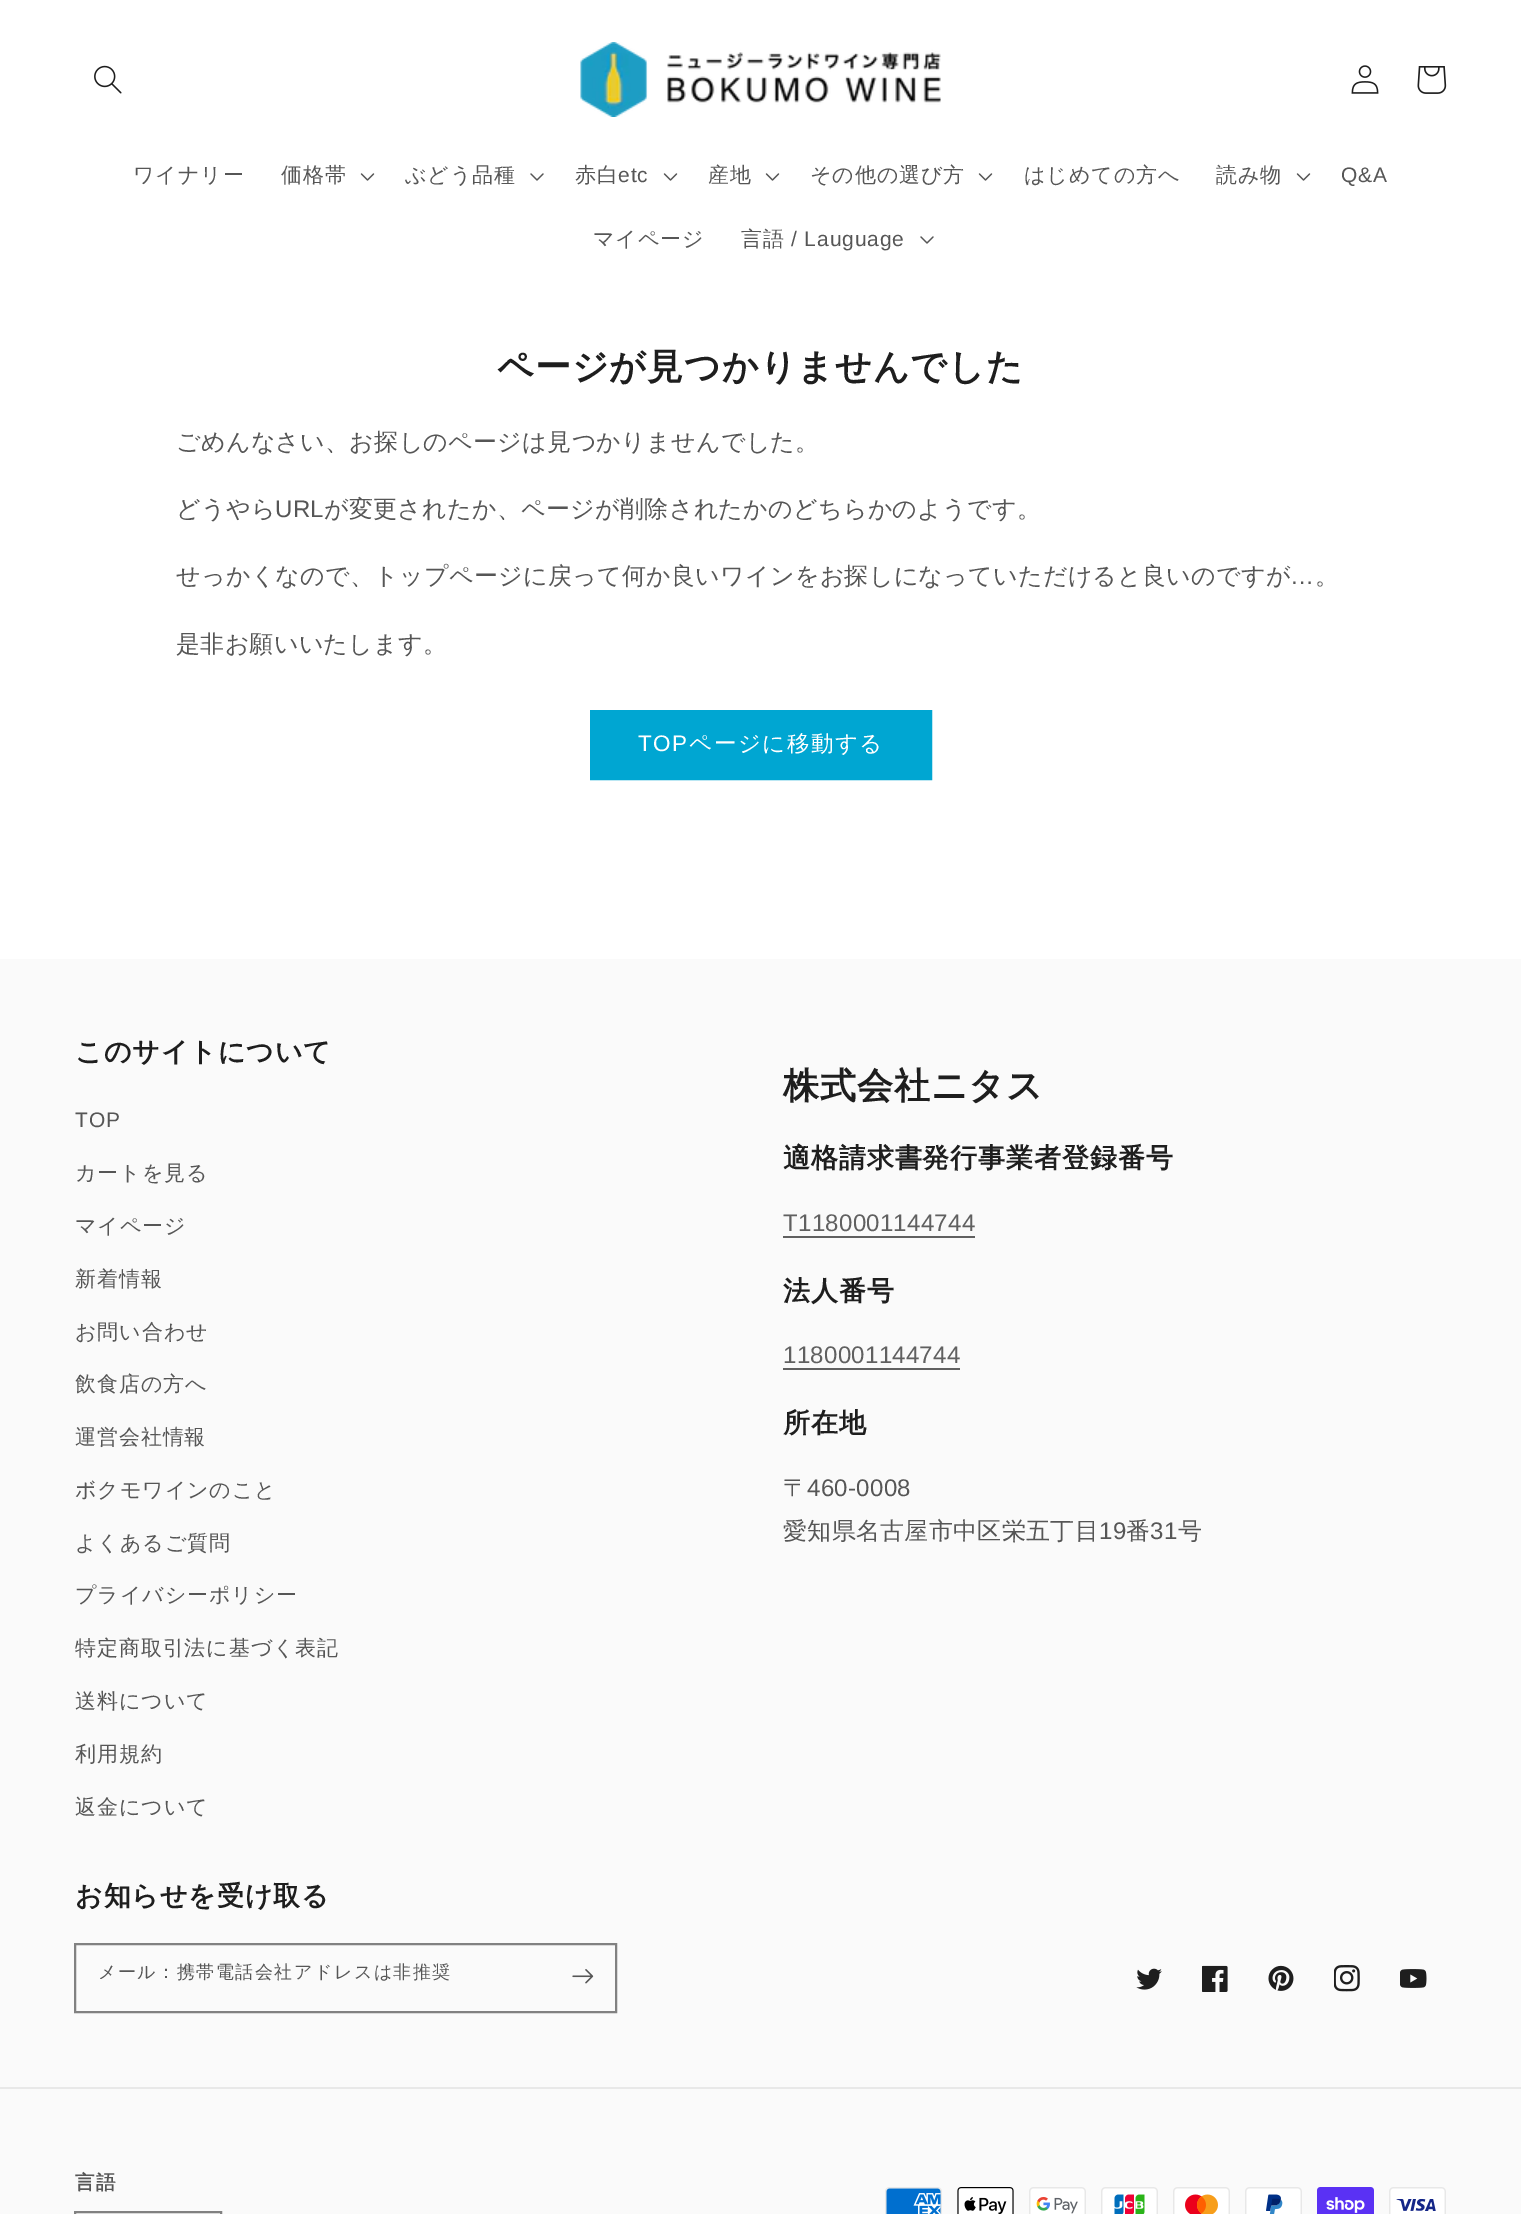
%!PS
<< /PageSize [1521 2214] >> setpagedevice
/rgb { 3 { 255 div 3 1 roll } repeat setrgbcolor } def
/font { [ exch dup neg 0 0 3 -1 roll 0 0 ] selectfont } def
/picture { 5 dict begin { /h /w /y /x /name } { exch def } forall
  gsave x y translate w h scale
  w h 8 [w 0 0 h 0 0] name (r) file false 3 colorimage grestore end } def
0 2214 translate 1 -1 scale
4 setmiterlimit
255 255 255 rgb
0 0 1521 2214 rectfill
(img/1.rgb) 94 65 28 29 picture
(img/2.rgb) 580 42 361 75 picture
(img/3.rgb) 1351 65 28 29 picture
(img/4.rgb) 1417 66 30 28 picture
(img/5.rgb) 360 173 15 8 picture
(img/6.rgb) 530 173 14 8 picture
(img/5.rgb) 663 173 15 8 picture
(img/5.rgb) 765 173 15 8 picture
(img/5.rgb) 978 173 15 8 picture
(img/5.rgb) 1296 173 15 8 picture
(img/6.rgb) 920 236 14 8 picture
0 166 210 rgb
2 setlinewidth
591 711 340 68 rectstroke
[
  [592 712 338 66 0 166 210]
  [0 959 1521 1255 250 250 250]
  [783 1236 192 2 96 96 96]
  [783 1368 177 2 96 96 96]
] { aload pop rgb rectfill } forall
129 129 129 rgb
75 1944 541 68 rectstroke
(img/7.rgb) 572 1969 22 15 picture
(img/8.rgb) 1136 1968 26 22 picture
(img/9.rgb) 1202 1965 26 27 picture
(img/10.rgb) 1268 1965 26 26 picture
(img/11.rgb) 1334 1965 26 27 picture
(img/12.rgb) 1400 1969 27 19 picture
232 232 232 rgb
0 2087 1521 2 rectfill
129 129 129 rgb
75 2212 146 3 rectstroke
(img/13.rgb) 885 2187 57 27 picture
(img/14.rgb) 957 2187 57 27 picture
(img/15.rgb) 1029 2187 57 27 picture
(img/16.rgb) 1101 2187 57 27 picture
(img/17.rgb) 1173 2187 57 27 picture
(img/18.rgb) 1245 2187 57 27 picture
(img/19.rgb) 1317 2187 57 27 picture
(img/20.rgb) 1389 2187 57 27 picture
/WenQuanYiZenHei-Medium 21 font
86 86 86 rgb
133 182 moveto 0.9 0 (ワイナリー) ashow
281 182 moveto 0.9 0 (価格帯) ashow
405 182 moveto 0.9 0 (ぶどう品種) ashow
575 182 moveto 0.9 0 (赤白) ashow
/LiberationSans-Regular 21 font
618 182 moveto 0.9 0 (etc) ashow
/WenQuanYiZenHei-Medium 21 font
708 182 moveto 0.9 0 (産地) ashow
810 182 moveto 0.9 0 (その他の選び方) ashow
1024 182 moveto 0.9 0 (はじめての方へ) ashow
1216 182 moveto 0.9 0 (読み物) ashow
/LiberationSans-Regular 21 font
1341 182 moveto 0.9 0 (Q&A) ashow
/WenQuanYiZenHei-Medium 21 font
593 246 moveto 0.9 0 (マイページ) ashow
741 246 moveto 0.9 0 (言語) ashow
/LiberationSans-Regular 21 font
791 246 moveto 0.9 0 (/ Lauguage) ashow
/WenQuanYiZenHei-Bold 36 font
30 30 30 rgb
497 379 moveto 0.9 0 (ページが見つかりませんでした) ashow
/WenQuanYiZenHei-Medium 24 font
86 86 86 rgb
176 450 moveto 0.3 0 (ごめんなさい、お探しのページは見つかりませんでした。) ashow
176 517 moveto 0.3 0 (どうやら) ashow
/LiberationSans-Regular 24 font
275 517 moveto 0.3 0 (URL) ashow
/WenQuanYiZenHei-Medium 24 font
324 517 moveto 0.3 0 (が変更されたか、ページが削除されたかのどちらかのようです。) ashow
176 584 moveto 0.3 0 (せっかくなので、トップページに戻って何か良いワインをお探しになっていただけると良いのですが) ashow
/LiberationSans-Regular 24 font
1290 584 moveto 0.3 0 (…) ashow
/WenQuanYiZenHei-Medium 24 font
1315 584 moveto 0.3 0 (。) ashow
176 652 moveto 0.3 0 (是非お願いいたします。) ashow
/LiberationSans-Regular 22.5 font
255 255 255 rgb
638 751 moveto 1.5 0 (TOP) ashow
/WenQuanYiZenHei-Medium 22.5 font
689 751 moveto 1.5 0 (ページに移動する) ashow
/WenQuanYiZenHei-Bold 27 font
30 30 30 rgb
75 1061 moveto 0.9 0 (このサイトについて) ashow
/LiberationSans-Regular 21 font
86 86 86 rgb
75 1127 moveto 0.9 0 (TOP) ashow
/WenQuanYiZenHei-Medium 21 font
75 1180 moveto 0.9 0 (カートを見る) ashow
75 1233 moveto 0.9 0 (マイページ) ashow
75 1286 moveto 0.9 0 (新着情報) ashow
75 1339 moveto 0.9 0 (お問い合わせ) ashow
75 1391 moveto 0.9 0 (飲食店の方へ) ashow
75 1444 moveto 0.9 0 (運営会社情報) ashow
75 1497 moveto 0.9 0 (ボクモワインのこと) ashow
75 1550 moveto 0.9 0 (よくあるご質問) ashow
75 1602 moveto 0.9 0 (プライバシーポリシー) ashow
75 1655 moveto 0.9 0 (特定商取引法に基づく表記) ashow
75 1708 moveto 0.9 0 (送料について) ashow
75 1761 moveto 0.9 0 (利用規約) ashow
75 1814 moveto 0.9 0 (返金について) ashow
/WenQuanYiZenHei-Bold 36 font
30 30 30 rgb
783 1098 moveto 0.9 0 (株式会社ニタス) ashow
/WenQuanYiZenHei-Bold 27 font
783 1167 moveto 0.9 0 (適格請求書発行事業者登録番号) ashow
/LiberationSans-Regular 24 font
96 96 96 rgb
783 1231 moveto 0.3 0 (T1180001144744) ashow
/WenQuanYiZenHei-Bold 27 font
30 30 30 rgb
783 1300 moveto 0.9 0 (法人番号) ashow
/LiberationSans-Regular 24 font
96 96 96 rgb
783 1363 moveto 0.3 0 (1180001144744) ashow
/WenQuanYiZenHei-Bold 27 font
30 30 30 rgb
783 1432 moveto 0.9 0 (所在地) ashow
/WenQuanYiZenHei-Medium 24 font
86 86 86 rgb
783 1496 moveto 0.3 0 (〒) ashow
/LiberationSans-Regular 24 font
807 1496 moveto 0.3 0 (460-0008) ashow
/WenQuanYiZenHei-Medium 24 font
783 1539 moveto 0.3 0 (愛知県名古屋市中区栄五丁目) ashow
/LiberationSans-Regular 24 font
1099 1539 moveto 0.3 0 (19) ashow
/WenQuanYiZenHei-Medium 24 font
1126 1539 moveto 0.3 0 (番) ashow
/LiberationSans-Regular 24 font
1150 1539 moveto 0.3 0 (31) ashow
/WenQuanYiZenHei-Medium 24 font
1178 1539 moveto 0.3 0 (号) ashow
/WenQuanYiZenHei-Bold 27 font
30 30 30 rgb
75 1905 moveto 0.9 0 (お知らせを受け取る) ashow
/WenQuanYiZenHei-Medium 18 font
86 86 86 rgb
98 1978 moveto 1.5 0 (メール：携帯電話会社アドレスは非推奨) ashow
/WenQuanYiZenHei-Bold 19.5 font
75 2189 moveto 1 0 (言語) ashow
showpage
